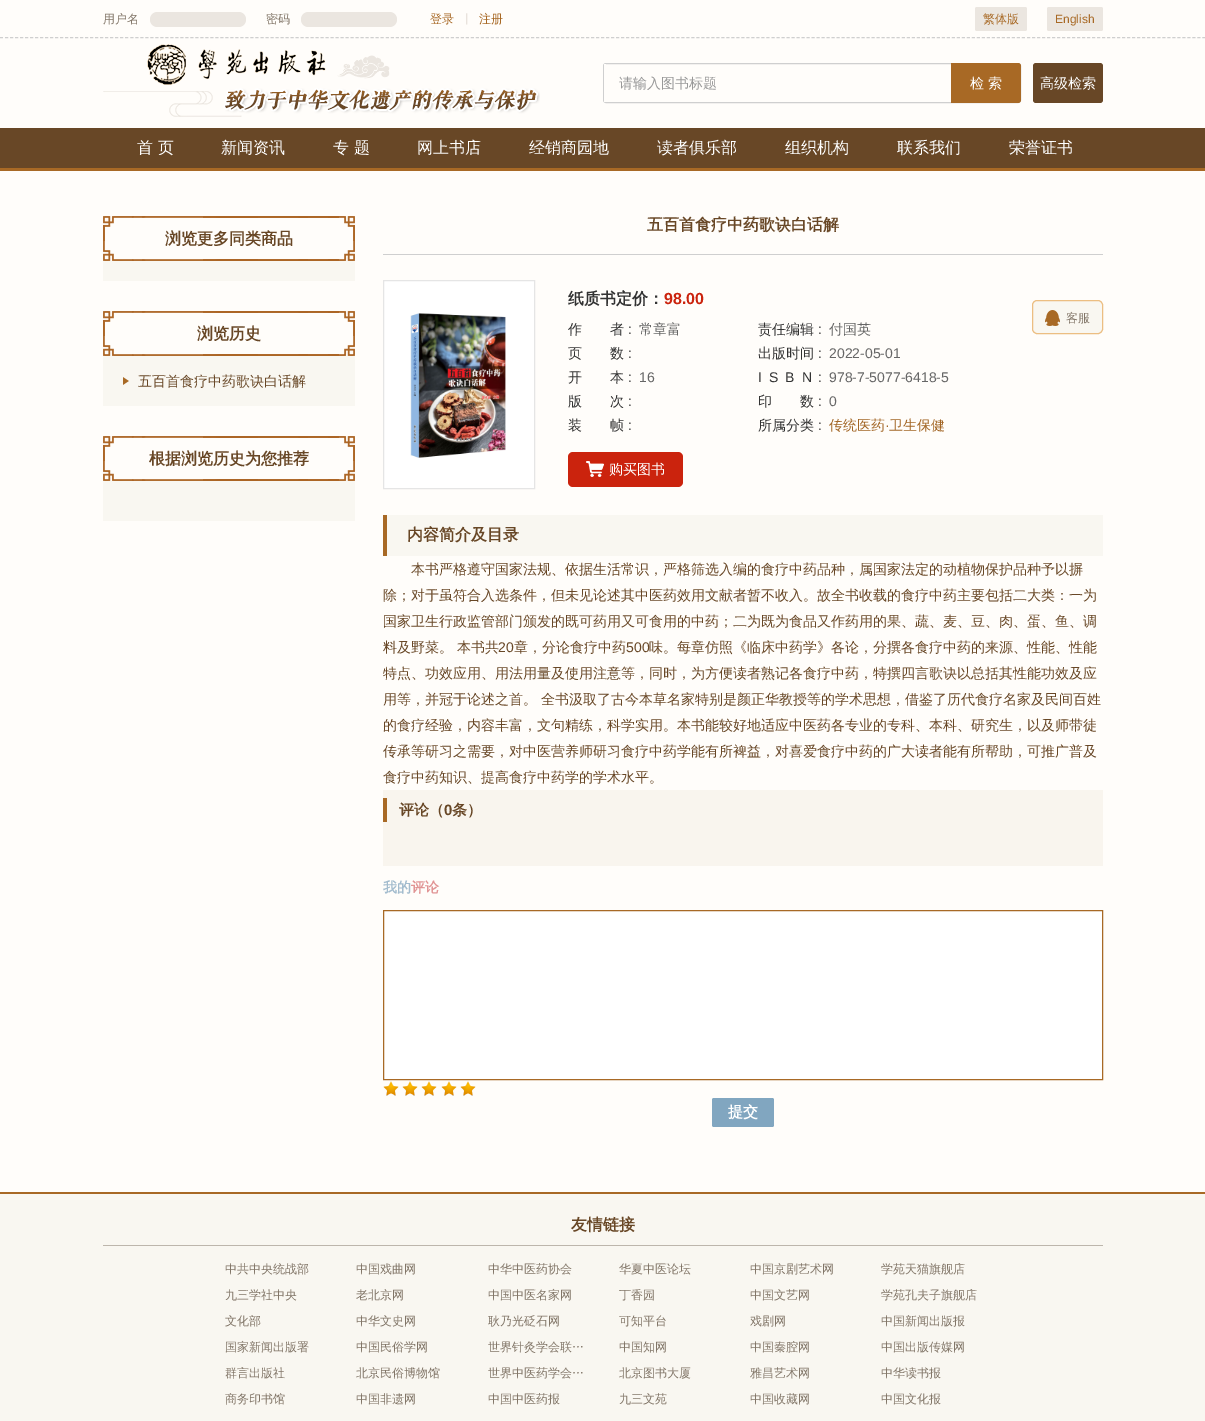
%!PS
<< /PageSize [1205 1421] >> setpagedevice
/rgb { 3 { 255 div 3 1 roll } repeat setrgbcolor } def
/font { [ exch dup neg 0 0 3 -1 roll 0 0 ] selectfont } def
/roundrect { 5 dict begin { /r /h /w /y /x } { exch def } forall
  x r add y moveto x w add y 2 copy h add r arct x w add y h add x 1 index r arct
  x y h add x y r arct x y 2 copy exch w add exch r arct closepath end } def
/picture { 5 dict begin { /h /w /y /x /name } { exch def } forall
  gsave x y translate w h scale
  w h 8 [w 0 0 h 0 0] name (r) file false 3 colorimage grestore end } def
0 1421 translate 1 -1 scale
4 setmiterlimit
255 253 250 rgb
0 0 1205 1421 rectfill
207 207 207 rgb
[3 2.01] 0 setdash
0 37.5 moveto 1205 37.5 lineto stroke
235 230 224 rgb
150 12 96 15 7.5 roundrect fill
301 12 96 15 7.5 roundrect fill
975 7 52 24 2 roundrect fill
1047 7 56 24 2 roundrect fill
(img/1.rgb) 103 44 437 73 picture
207 207 207 rgb
[] 0 setdash
603.5 63.5 417 39 2.5 roundrect stroke
255 253 250 rgb
604 64 2 38 rectfill
168 105 37 rgb
951 63 moveto 1018 63 lineto 1019.5 63 1021 64.5 1021 66 curveto 1021 100 lineto 1021 101.5 1019.5 103 1018 103 curveto 951 103 lineto closepath fill
104 71 38 rgb
1033 63 70 40 3 roundrect fill
0 128 1205 40 rectfill
168 105 37 rgb
0 168 1205 3 rectfill
(img/2.rgb) 103 216 252 45 picture
249 247 241 rgb
103 261 252 20 rectfill
(img/2.rgb) 103 311 252 45 picture
103 356 252 50 rectfill
(img/3.rgb) 123 377 6 8 picture
(img/2.rgb) 103 436 252 45 picture
103 481 252 40 rectfill
207 207 207 rgb
383 254 720 1 rectfill
255 255 255 rgb
383.5 280.5 moveto 534.5 280.5 lineto 534.5 488.5 lineto 383.5 488.5 lineto closepath gsave fill grestore
229 229 229 rgb
stroke
(img/4.rgb) 410 313 96 145 picture
249 247 241 rgb
1032.5 300.5 70 33 4.5 roundrect gsave fill grestore
236 190 130 rgb
stroke
(img/5.rgb) 1045 310 15 16 picture
203 35 13 rgb
568 452 115 35 5 roundrect fill
(img/6.rgb) 586 461 18 16 picture
[
  [387 515 716 41 249 247 241]
  [383 515 4 41 168 105 37]
  [383 790 720 76 249 245 238]
  [383 798 4 24 168 105 37]
] { aload pop rgb rectfill } forall
255 255 255 rgb
383.5 910.5 moveto 1102.5 910.5 lineto 1102.5 1079.5 lineto 383.5 1079.5 lineto closepath gsave fill grestore
168 105 37 rgb
stroke
(img/7.rgb) 383 1081 16 15 picture
(img/7.rgb) 402 1081 16 15 picture
(img/7.rgb) 421 1081 16 15 picture
(img/7.rgb) 441 1081 16 15 picture
(img/7.rgb) 460 1081 16 15 picture
129 166 192 rgb
712 1098 62 29 2 roundrect fill
[
  [0 1194 1205 227 249 247 241]
  [0 1192 1205 2 168 105 37]
  [103 1245 1000 1 189 182 172]
] { aload pop rgb rectfill } forall
/WenQuanYiZenHei-Medium 12 font
130 118 104 rgb
103 23 moveto (用户名) show
266 23 moveto (密码) show
168 105 37 rgb
430 23 moveto (登录) show
226 218 211 rgb
461 23 moveto (丨) show
168 105 37 rgb
479 23 moveto (注册) show
983 23 moveto (繁体版) show
/LiberationSans-Regular 12 font
1055 23 moveto (English) show
/WenQuanYiZenHei-Medium 14 font
153 153 153 rgb
619 88 moveto (请输入图书标题) show
255 255 255 rgb
970 88 moveto (检 索) show
1040 88 moveto (高级检索) show
/WenQuanYiZenHei-Medium 16 font
[
  [(首 页) 137 153]
  [(新闻资讯) 221 153]
  [(专 题) 333 153]
  [(网上书店) 417 153]
  [(经销商园地) 529 153]
  [(读者俱乐部) 657 153]
  [(组织机构) 785 153]
  [(联系我们) 897 153]
  [(荣誉证书) 1009 153]
] { aload pop moveto show } forall
/WenQuanYiZenHei-Bold 16 font
104 71 38 rgb
165 244 moveto (浏览更多同类商品) show
197 339 moveto (浏览历史) show
/WenQuanYiZenHei-Medium 14 font
138 386 moveto (五百首食疗中药歌诀白话解) show
/WenQuanYiZenHei-Bold 16 font
149 464 moveto (根据浏览历史为您推荐) show
647 230 moveto (五百首食疗中药歌诀白话解) show
51 51 51 rgb
568 304 moveto (纸质书定价：) show
/LiberationSans-Bold 16 font
203 35 13 rgb
664 304 moveto (98.00) show
/WenQuanYiZenHei-Medium 12 font
130 118 104 rgb
1066 322 moveto (客服) show
/WenQuanYiZenHei-Medium 14 font
51 51 51 rgb
568 334 moveto 28 0 (作者) ashow
/LiberationSans-Regular 14 font
628 334 moveto (:) show
/WenQuanYiZenHei-Medium 14 font
102 102 102 rgb
639 334 moveto (常章富) show
51 51 51 rgb
758 334 moveto (责任编辑) show
/LiberationSans-Regular 14 font
818 334 moveto (:) show
/WenQuanYiZenHei-Medium 14 font
102 102 102 rgb
829 334 moveto (付国英) show
51 51 51 rgb
568 358 moveto 28 0 (页数) ashow
/LiberationSans-Regular 14 font
628 358 moveto (:) show
/WenQuanYiZenHei-Medium 14 font
758 358 moveto (出版时间) show
/LiberationSans-Regular 14 font
818 358 moveto (:) show
102 102 102 rgb
829 358 moveto (2022-05-01) show
/WenQuanYiZenHei-Medium 14 font
51 51 51 rgb
568 382 moveto 28 0 (开本) ashow
/LiberationSans-Regular 14 font
628 382 moveto (:) show
102 102 102 rgb
639 382 moveto (16) show
51 51 51 rgb
758 382 moveto 7 0 (ISBN) ashow
818 382 moveto (:) show
102 102 102 rgb
829 382 moveto (978-7-5077-6418-5) show
/WenQuanYiZenHei-Medium 14 font
51 51 51 rgb
568 406 moveto 28 0 (版次) ashow
/LiberationSans-Regular 14 font
628 406 moveto (:) show
/WenQuanYiZenHei-Medium 14 font
758 406 moveto 28 0 (印数) ashow
/LiberationSans-Regular 14 font
818 406 moveto (:) show
102 102 102 rgb
829 406 moveto (0) show
/WenQuanYiZenHei-Medium 14 font
51 51 51 rgb
568 430 moveto 28 0 (装帧) ashow
/LiberationSans-Regular 14 font
628 430 moveto (:) show
/WenQuanYiZenHei-Medium 14 font
758 430 moveto (所属分类) show
/LiberationSans-Regular 14 font
818 430 moveto (:) show
/WenQuanYiZenHei-Medium 14 font
162 101 36 rgb
829 430 moveto (传统医药) show
/LiberationSans-Regular 14 font
885 430 moveto (·) show
/WenQuanYiZenHei-Medium 14 font
889 430 moveto (卫生保健) show
255 255 255 rgb
609 474 moveto (购买图书) show
/WenQuanYiZenHei-Bold 16 font
104 71 38 rgb
407 540 moveto (内容简介及目录) show
/WenQuanYiZenHei-Medium 14 font
[
  [(本书严格遵守国家法规、依据生活常识，严格筛选入编的食疗中药品种，属国家法定的动植物保护品种予以摒) 411 574]
  [(除；对于虽符合入选条件，但未见论述其中医药效用文献者暂不收入。故全书收载的食疗中药主要包括二大类：一为) 383 600]
  [(国家卫生行政监管部门颁发的既可药用又可食用的中药；二为既为食品又作药用的果、蔬、麦、豆、肉、蛋、鱼、调) 383 626]
  [(料及野菜。 本书共) 383 652]
] { aload pop moveto show } forall
/LiberationSans-Regular 14 font
498 652 moveto (20) show
/WenQuanYiZenHei-Medium 14 font
514 652 moveto (章，分论食疗中药) show
/LiberationSans-Regular 14 font
626 652 moveto (500) show
/WenQuanYiZenHei-Medium 14 font
[
  [(味。每章仿照《临床中药学》各论，分撰各食疗中药的来源、性能、性能) 649 652]
  [(特点、功效应用、用法用量及使用注意等，同时，为方便读者熟记各食疗中药，特撰四言歌诀以总括其性能功效及应) 383 678]
  [(用等，并冠于论述之首。 全书汲取了古今本草名家特别是颜正华教授等的学术思想，借鉴了历代食疗名家及民间百姓) 383 704]
  [(的食疗经验，内容丰富，文句精练，科学实用。本书能较好地适应中医药各专业的专科、本科、研究生，以及师带徒) 383 730]
  [(传承等研习之需要，对中医营养师研习食疗中药学能有所裨益，对喜爱食疗中药的广大读者能有所帮助，可推广普及) 383 756]
  [(食疗中药知识、提高食疗中药学的学术水平。) 383 782]
] { aload pop moveto show } forall
/WenQuanYiZenHei-Bold 15 font
399 815 moveto (评论（) show
/LiberationSans-Bold 15 font
444 815 moveto (0) show
/WenQuanYiZenHei-Bold 15 font
452 815 moveto (条）) show
/WenQuanYiZenHei-Bold 14 font
163 188 206 rgb
383 892 moveto (我的) show
225 148 148 rgb
411 892 moveto (评论) show
/WenQuanYiZenHei-Bold 15 font
255 255 255 rgb
728 1117 moveto (提交) show
/WenQuanYiZenHei-Bold 16 font
104 71 38 rgb
571 1230 moveto (友情链接) show
/WenQuanYiZenHei-Medium 12 font
130 118 104 rgb
[
  [(中共中央统战部) 225 1273]
  [(九三学社中央) 225 1299]
  [(文化部) 225 1325]
  [(国家新闻出版署) 225 1351]
  [(群言出版社) 225 1377]
  [(商务印书馆) 225 1403]
  [(中国戏曲网) 356 1273]
  [(老北京网) 356 1299]
  [(中华文史网) 356 1325]
  [(中国民俗学网) 356 1351]
  [(北京民俗博物馆) 356 1377]
  [(中国非遗网) 356 1403]
  [(中华中医药协会) 488 1273]
  [(中国中医名家网) 488 1299]
  [(耿乃光砭石网) 488 1325]
  [(世界针灸学会联…) 488 1351]
  [(世界中医药学会…) 488 1377]
  [(中国中医药报) 488 1403]
  [(华夏中医论坛) 619 1273]
  [(丁香园) 619 1299]
  [(可知平台) 619 1325]
  [(中国知网) 619 1351]
  [(北京图书大厦) 619 1377]
  [(九三文苑) 619 1403]
  [(中国京剧艺术网) 750 1273]
  [(中国文艺网) 750 1299]
  [(戏剧网) 750 1325]
  [(中国秦腔网) 750 1351]
  [(雅昌艺术网) 750 1377]
  [(中国收藏网) 750 1403]
  [(学苑天猫旗舰店) 881 1273]
  [(学苑孔夫子旗舰店) 881 1299]
  [(中国新闻出版报) 881 1325]
  [(中国出版传媒网) 881 1351]
  [(中华读书报) 881 1377]
  [(中国文化报) 881 1403]
] { aload pop moveto show } forall
showpage
